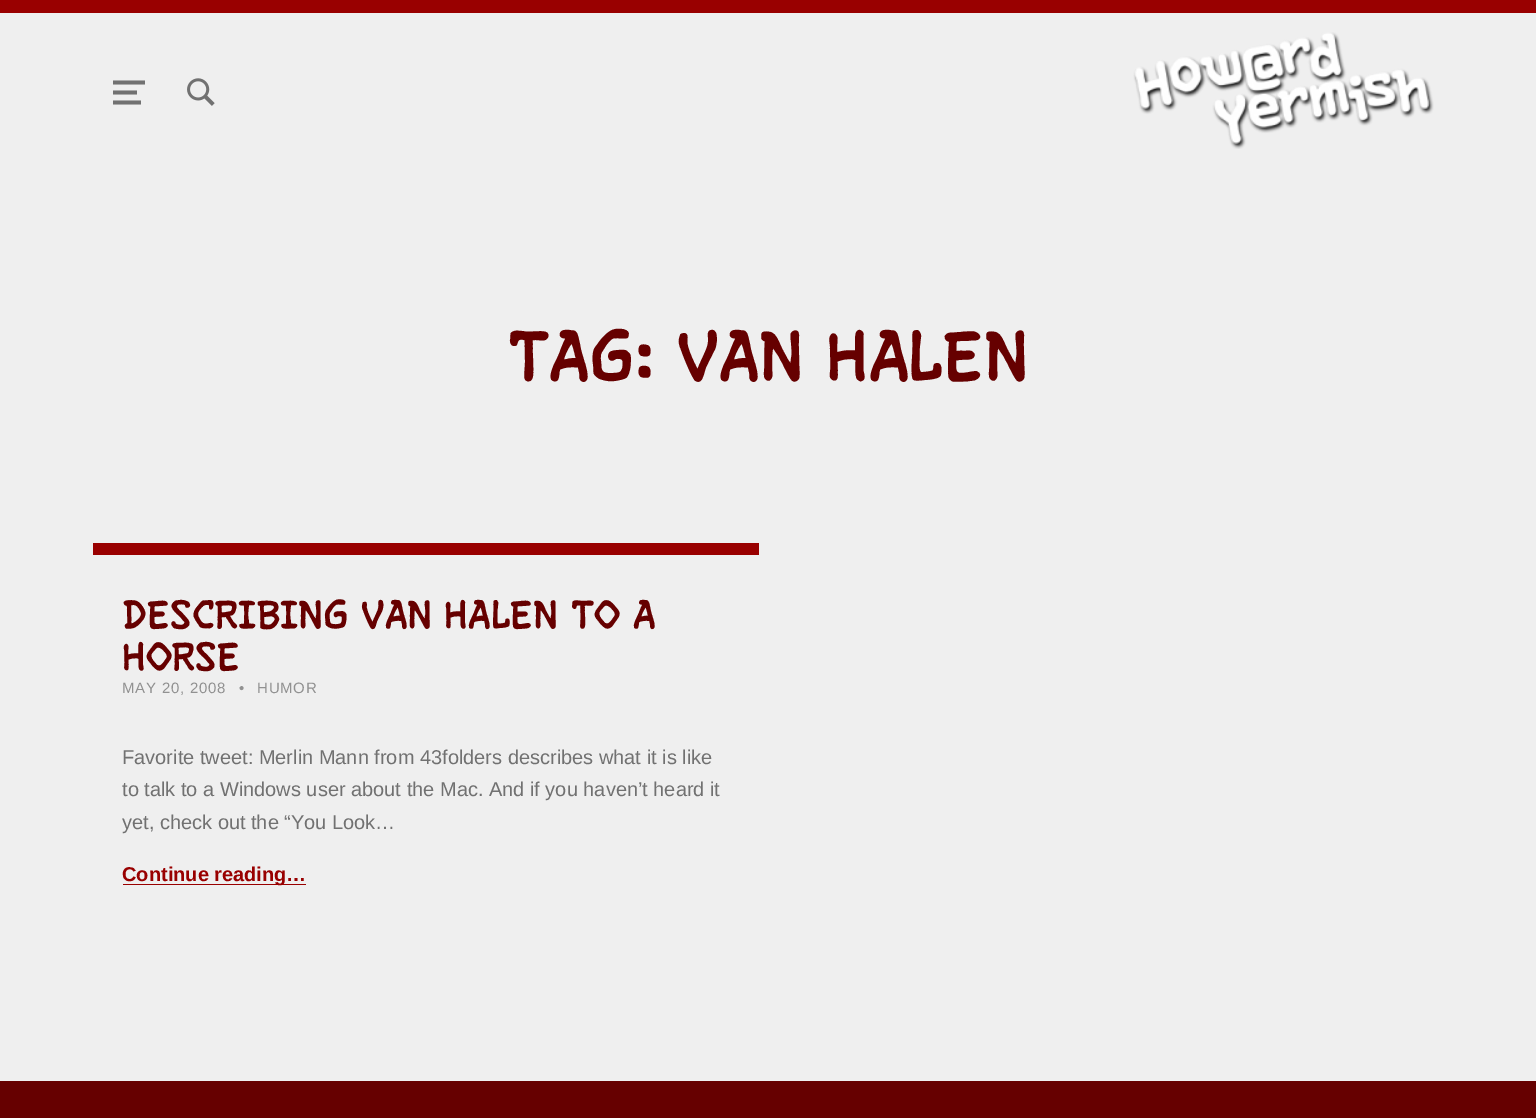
%!PS
<< /PageSize [1536 1118] >> setpagedevice
/rgb { 3 { 255 div 3 1 roll } repeat setrgbcolor } def
/font { [ exch dup neg 0 0 3 -1 roll 0 0 ] selectfont } def
/picture { 5 dict begin { /h /w /y /x /name } { exch def } forall
  gsave x y translate w h scale
  w h 8 [w 0 0 h 0 0] name (r) file false 3 colorimage grestore end } def
0 1118 translate 1 -1 scale
4 setmiterlimit
239 239 239 rgb
0 0 1536 1118 rectfill
153 0 0 rgb
0 0 1536 13 rectfill
gsave
113 76 32 33 rectclip
113 113 113 rgb
112.5 80.5 moveto 112.5 84.5 lineto 145 84.5 lineto 145 80.5 lineto closepath 112.5 94.5 moveto 137 94.5 lineto 137 90.5 lineto 112.5 90.5 lineto closepath 112.5 104.5 moveto 141 104.5 lineto 141 100.5 lineto 112.5 100.5 lineto closepath fill
grestore
(img/1.rgb) 187 78 28 28 picture
(img/2.rgb) 1133 32 301 117 picture
[
  [93 543 666 12 153 0 0]
  [123 884 183 1 153 0 0]
  [0 1081 1536 37 102 0 0]
] { aload pop rgb rectfill } forall
/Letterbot-Regular 63.25 font
508 380 moveto (TAG: VAN HALEN) show
/Letterbot-Regular 35.5 font
122 628 moveto (DESCRIBING VAN HALEN TO A) show
122 670 moveto (HORSE) show
/LiberationSans-Regular 15 font
145 145 145 rgb
122 693 moveto 0.75 0 (MAY 20, 2008) ashow
239 693 moveto 0.75 0 (•) ashow
257 693 moveto 0.75 0 (HUMOR) ashow
/LiberationSans-Regular 20 font
113 113 113 rgb
[
  [(Favorite tweet: Merlin Mann from 43folders describes what it is like) 122 764]
  [(to talk to a Windows user about the Mac. And if you haven’t heard it) 122 796]
  [(yet, check out the “You Look…) 122 829]
] { aload pop moveto show } forall
/LiberationSans-Bold 20 font
153 0 0 rgb
122 881 moveto (Continue reading…) show
showpage
